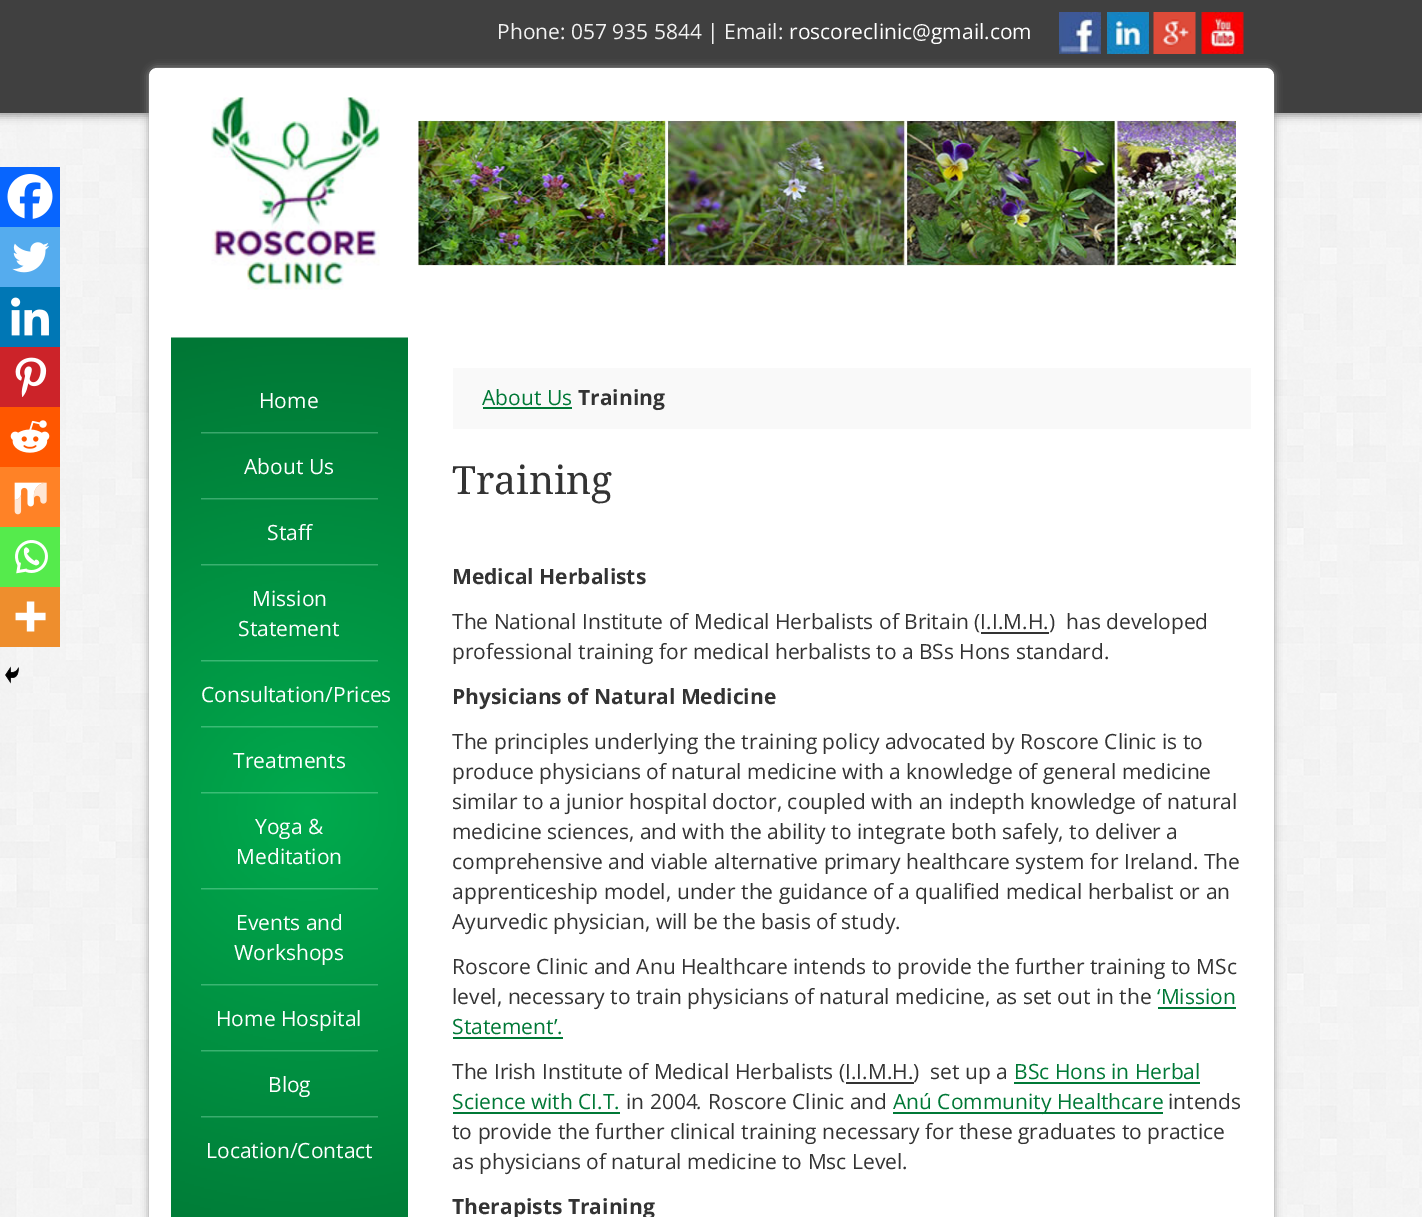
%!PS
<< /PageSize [1422 1217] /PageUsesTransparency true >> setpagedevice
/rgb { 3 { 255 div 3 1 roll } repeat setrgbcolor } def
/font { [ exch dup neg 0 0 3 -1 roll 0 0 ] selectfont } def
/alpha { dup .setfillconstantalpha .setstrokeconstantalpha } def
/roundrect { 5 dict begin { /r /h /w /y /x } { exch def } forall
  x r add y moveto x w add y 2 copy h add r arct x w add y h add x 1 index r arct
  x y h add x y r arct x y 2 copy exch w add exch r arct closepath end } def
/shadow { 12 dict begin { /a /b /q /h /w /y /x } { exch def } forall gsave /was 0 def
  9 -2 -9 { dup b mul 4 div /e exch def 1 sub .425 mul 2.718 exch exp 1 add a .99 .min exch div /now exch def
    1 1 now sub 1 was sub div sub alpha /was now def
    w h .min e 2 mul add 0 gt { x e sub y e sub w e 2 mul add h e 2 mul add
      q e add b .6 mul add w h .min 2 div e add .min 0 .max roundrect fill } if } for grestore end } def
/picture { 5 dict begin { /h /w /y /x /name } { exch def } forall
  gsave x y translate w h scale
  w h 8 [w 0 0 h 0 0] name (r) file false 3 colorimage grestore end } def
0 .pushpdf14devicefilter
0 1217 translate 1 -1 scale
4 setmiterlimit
255 255 255 rgb
0 0 1422 1217 rectfill
(img/1.rgb) 0 113 1422 1104 picture
153 153 153 rgb
-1 3 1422 113 0 4 1 shadow
64 64 64 rgb
0 0 1422 113 rectfill
(img/2.rgb) 1059 12 42 42 picture
(img/3.rgb) 1107 12 42 42 picture
(img/4.rgb) 1153 12 43 42 picture
(img/5.rgb) 1201 12 43 42 picture
153 153 153 rgb
149 68 1125 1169 8 4 1 shadow
255 255 255 rgb
149 68 1125 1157 8 roundrect fill
(img/6.rgb) 211 97 169 193 picture
(img/7.rgb) 418 120 818 146 picture
(img/8.rgb) 171 337 237 880 picture
(img/9.rgb) 201 432 177 2 picture
(img/10.rgb) 201 498 177 2 picture
(img/11.rgb) 201 564 177 2 picture
(img/12.rgb) 201 660 177 2 picture
(img/13.rgb) 201 726 177 2 picture
(img/14.rgb) 201 792 177 2 picture
(img/15.rgb) 201 888 177 2 picture
(img/16.rgb) 201 984 177 2 picture
(img/17.rgb) 201 1050 177 2 picture
(img/18.rgb) 201 1116 177 2 picture
7 101 254 rgb
0 167 60 60 rectfill
(img/19.rgb) 7 174 46 45 picture
85 172 238 rgb
0 227 60 60 rectfill
(img/20.rgb) 12 242 37 31 picture
0 119 181 rgb
0 287 60 60 rectfill
(img/21.rgb) 11 297 38 39 picture
204 35 41 rgb
0 347 60 60 rectfill
(img/22.rgb) 15 357 32 40 picture
255 87 0 rgb
0 407 60 60 rectfill
(img/23.rgb) 10 420 40 33 picture
255 130 38 rgb
0 467 60 60 rectfill
(img/24.rgb) 14 482 33 33 picture
85 235 76 rgb
0 527 60 60 rectfill
(img/25.rgb) 15 540 33 34 picture
238 142 45 rgb
0 587 60 60 rectfill
(img/26.rgb) 15 601 31 31 picture
(img/27.rgb) 5 666 14 18 picture
[
  [453 368 798 61 249 249 249]
  [483 407 89 2 0 120 54]
  [981 632 68 2 51 51 51]
  [1158 1007 78 2 0 120 54]
  [453 1037 110 2 0 120 54]
  [1014 1082 186 2 0 120 54]
  [846 1082 68 2 51 51 51]
  [453 1112 167 2 0 120 54]
  [893 1112 270 2 0 120 54]
] { aload pop rgb rectfill } forall
/OpenSans-Regular 21 font
242 242 242 rgb
497 39 moveto (Phone: 057 935 5844 | Email:) show
255 255 255 rgb
[
  [(roscoreclinic@gmail.com) 789 39]
  [(Home) 259 408]
  [(About Us) 244 474]
  [(Staff) 267 540]
  [(Mission) 252 606]
  [(Statement) 238 636]
  [(Consultation/Prices) 201 702]
  [(Treatments) 233 768]
  [(Yoga &) 255 834]
  [(Meditation) 236 864]
  [(Events and) 236 930]
  [(Workshops) 234 960]
  [(Home Hospital) 216 1026]
  [(Blog) 268 1092]
  [(Location/Contact) 206 1158]
] { aload pop moveto show } forall
0 120 54 rgb
482 405 moveto (About Us) show
/OpenSans-Bold 21 font
51 51 51 rgb
578 405 moveto (Training) show
/DroidSerif-Regular 39 font
452 494 moveto (Training) show
/OpenSans-Bold 21 font
452 584 moveto (Medical Herbalists) show
/OpenSans-Regular 21 font
[
  [(The National Institute of Medical Herbalists of Britain \(I.I.M.H.\)) 452 629]
  [(has developed) 1066 629]
  [(professional training for medical herbalists to a BSs Hons standard.) 452 659]
] { aload pop moveto show } forall
/OpenSans-Bold 21 font
452 704 moveto (Physicians of Natural Medicine) show
/OpenSans-Regular 21 font
[
  [(The principles underlying the training policy advocated by Roscore Clinic is to) 452 749]
  [(produce physicians of natural medicine with a knowledge of general medicine) 452 779]
  [(similar to a junior hospital doctor, coupled with an indepth knowledge of natural) 452 809]
  [(medicine sciences, and with the ability to integrate both safely, to deliver a) 452 839]
  [(comprehensive and viable alternative primary healthcare system for Ireland. The) 452 869]
  [(apprenticeship model, under the guidance of a qualified medical herbalist or an) 452 899]
  [(Ayurvedic physician, will be the basis of study.) 452 929]
  [(Roscore Clinic and Anu Healthcare intends to provide the further training to MSc) 452 974]
  [(level, necessary to train physicians of natural medicine, as set out in the) 452 1004]
] { aload pop moveto show } forall
0 120 54 rgb
1157 1004 moveto (‘Mission) show
452 1034 moveto (Statement’.) show
51 51 51 rgb
452 1079 moveto (The Irish Institute of Medical Herbalists \(I.I.M.H.\)  set up a) show
0 120 54 rgb
1014 1079 moveto (BSc Hons in Herbal) show
452 1109 moveto (Science with CI.T.) show
51 51 51 rgb
626 1109 moveto (in 2004) show
/OpenSans-Italic 21 font
697 1109 moveto (.) show
/OpenSans-Regular 21 font
708 1109 moveto (Roscore Clinic and) show
0 120 54 rgb
893 1109 moveto (Anú Community Healthcare) show
51 51 51 rgb
[
  [(intends) 1168 1109]
  [(to provide the further clinical training necessary for these graduates to practice) 452 1139]
  [(as physicians of natural medicine to Msc Level.) 452 1169]
] { aload pop moveto show } forall
/OpenSans-Bold 21 font
452 1214 moveto (Therapists Training) show
.poppdf14devicefilter showpage
